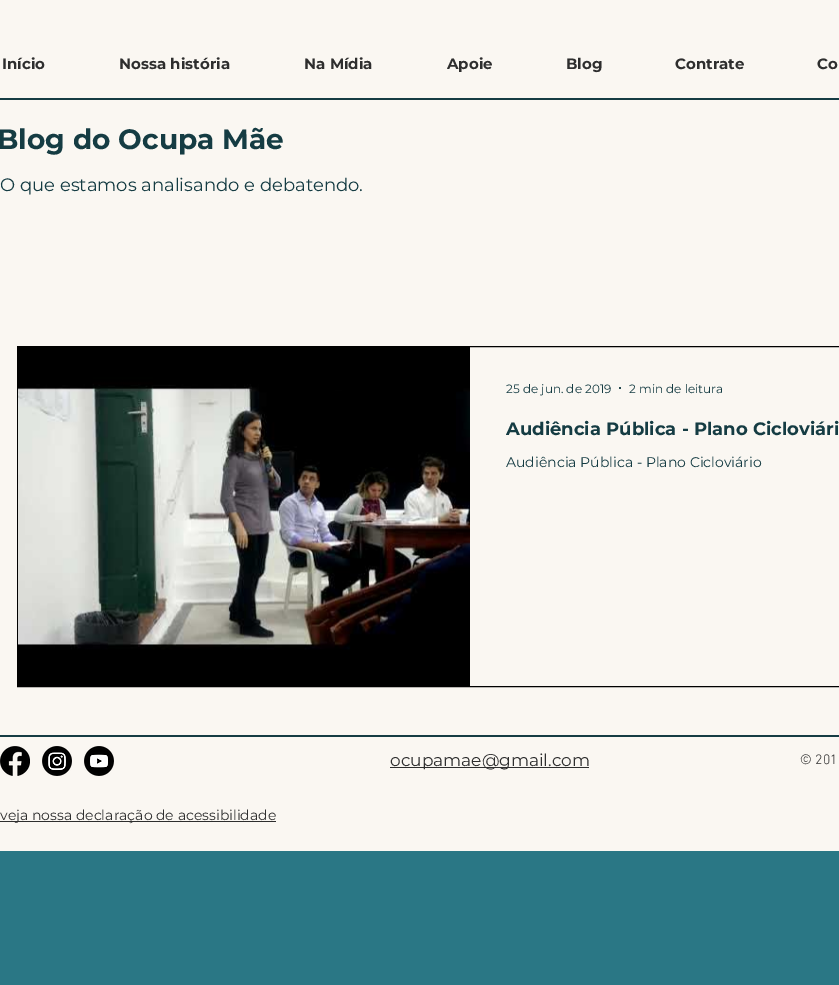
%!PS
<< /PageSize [839 985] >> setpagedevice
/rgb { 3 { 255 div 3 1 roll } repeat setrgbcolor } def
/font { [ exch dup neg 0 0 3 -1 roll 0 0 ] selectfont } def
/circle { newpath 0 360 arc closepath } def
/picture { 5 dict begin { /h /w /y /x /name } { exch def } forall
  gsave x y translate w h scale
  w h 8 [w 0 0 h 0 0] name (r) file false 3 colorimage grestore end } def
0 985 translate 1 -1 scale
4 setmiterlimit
42 119 133 rgb
0 0 839 985 rectfill
[
  [0 98 839 2 21 60 67]
  [0 0 839 98 250 247 242]
  [0 100 839 635 250 247 242]
] { aload pop rgb rectfill } forall
0 0 0 rgb
17.5 346.5 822 340 rectstroke
(img/1.rgb) 18 347 452 339 picture
21 60 67 rgb
620 388 1 circle fill
0 735 839 2 rectfill
250 247 242 rgb
0 737 839 114 rectfill
(img/2.rgb) 0 746 30 30 picture
(img/3.rgb) 42 746 30 30 picture
(img/4.rgb) 84 746 30 30 picture
46 46 46 rgb
390 767 199 1 rectfill
0 821 276 1 rectfill
/Montserrat-Bold 15 font
[
  [(Início) 2 69]
  [(Nossa história) 119 69]
  [(Na Mídia) 304 69]
  [(Apoie) 447 69]
  [(Blog) 566 69]
  [(Contrate) 675 69]
  [(Co) 817 69]
] { aload pop moveto show } forall
/Montserrat-Bold 28 font
21 60 67 rgb
-3 149 moveto (Blog do Ocupa Mãe) show
/Montserrat-Regular 18 font
0 191 moveto (O que estamos analisando e debatendo.) show
/Montserrat-Regular 12 font
506 393 moveto (25 de jun. de 2019) show
629 393 moveto (2 min de leitura) show
/Montserrat-Bold 18 font
506 435 moveto (Audiência Pública - Plano Cicloviári) show
/Montserrat-Regular 14 font
506 467 moveto (Audiência Pública - Plano Cicloviário) show
/Montserrat-Regular 17 font
46 46 46 rgb
390 766 moveto (ocupamae@gmail.com) show
/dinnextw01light-Light 14 font
800 764 moveto (© 201) show
/Montserrat-Regular 14 font
0 820 moveto (veja nossa declaração de acessibilidade) show
showpage
